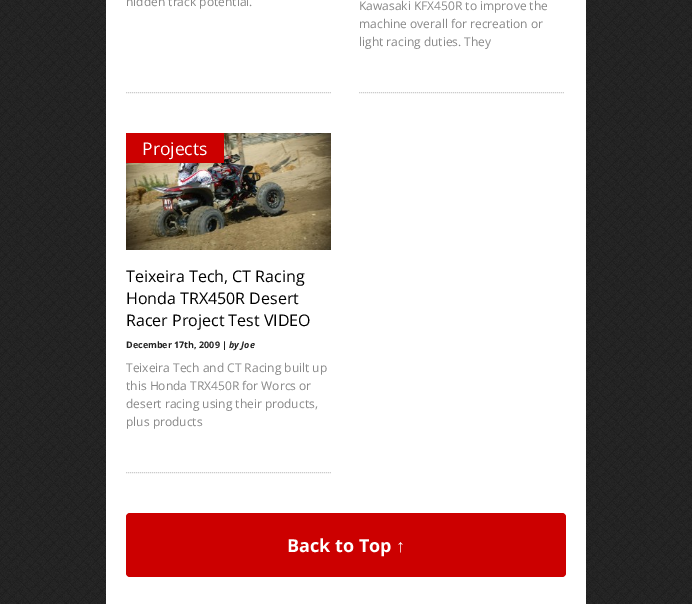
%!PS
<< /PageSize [692 604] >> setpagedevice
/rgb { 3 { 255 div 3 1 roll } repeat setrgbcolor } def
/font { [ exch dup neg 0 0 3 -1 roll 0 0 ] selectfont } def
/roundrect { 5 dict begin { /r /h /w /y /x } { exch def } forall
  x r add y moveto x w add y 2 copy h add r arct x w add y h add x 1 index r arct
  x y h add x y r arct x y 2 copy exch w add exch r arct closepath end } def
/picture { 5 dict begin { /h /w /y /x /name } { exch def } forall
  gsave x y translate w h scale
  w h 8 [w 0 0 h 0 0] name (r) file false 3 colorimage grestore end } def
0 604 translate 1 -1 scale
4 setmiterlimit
255 255 255 rgb
0 0 692 604 rectfill
(img/1.rgb) 0 0 692 604 picture
106 0 480 604 rectfill
204 204 204 rgb
[1 1] 0 setdash
126 92.5 moveto 332 92.5 lineto stroke
359 92.5 moveto 565 92.5 lineto stroke
126 472.5 moveto 332 472.5 lineto stroke
(img/2.rgb) 126 133 205 117 picture
204 0 0 rgb
126 133 98 30 rectfill
126 513 440 64 4 roundrect fill
/OpenSans-Regular 12 font
136 136 136 rgb
[
  [(hidden track potential.) 126 6]
  [(Kawasaki KFX450R to improve the) 359 10]
  [(machine overall for recreation or) 359 28]
  [(light racing duties. They) 359 46]
] { aload pop moveto show } forall
/OpenSans-Regular 17.5 font
255 255 255 rgb
142 155 moveto (Projects) show
/OpenSans-Regular 16 font
0 0 0 rgb
[
  [(Teixeira Tech, CT Racing) 126 282]
  [(Honda TRX450R Desert) 126 304]
  [(Racer Project Test VIDEO) 126 326]
] { aload pop moveto show } forall
/OpenSans-Bold 9 font
34 34 34 rgb
126 348 moveto (December 17th, 2009 |) show
/OpenSans-BoldItalic 9 font
229 348 moveto (by Joe) show
/OpenSans-Regular 12 font
136 136 136 rgb
[
  [(Teixeira Tech and CT Racing built up) 126 372]
  [(this Honda TRX450R for Worcs or) 126 390]
  [(desert racing using their products,) 126 408]
  [(plus products) 126 426]
] { aload pop moveto show } forall
/OpenSans-Bold 18 font
255 255 255 rgb
287 552 moveto (Back to Top) show
/LiberationSans-Bold 18 font
396 552 moveto (↑) show
showpage
